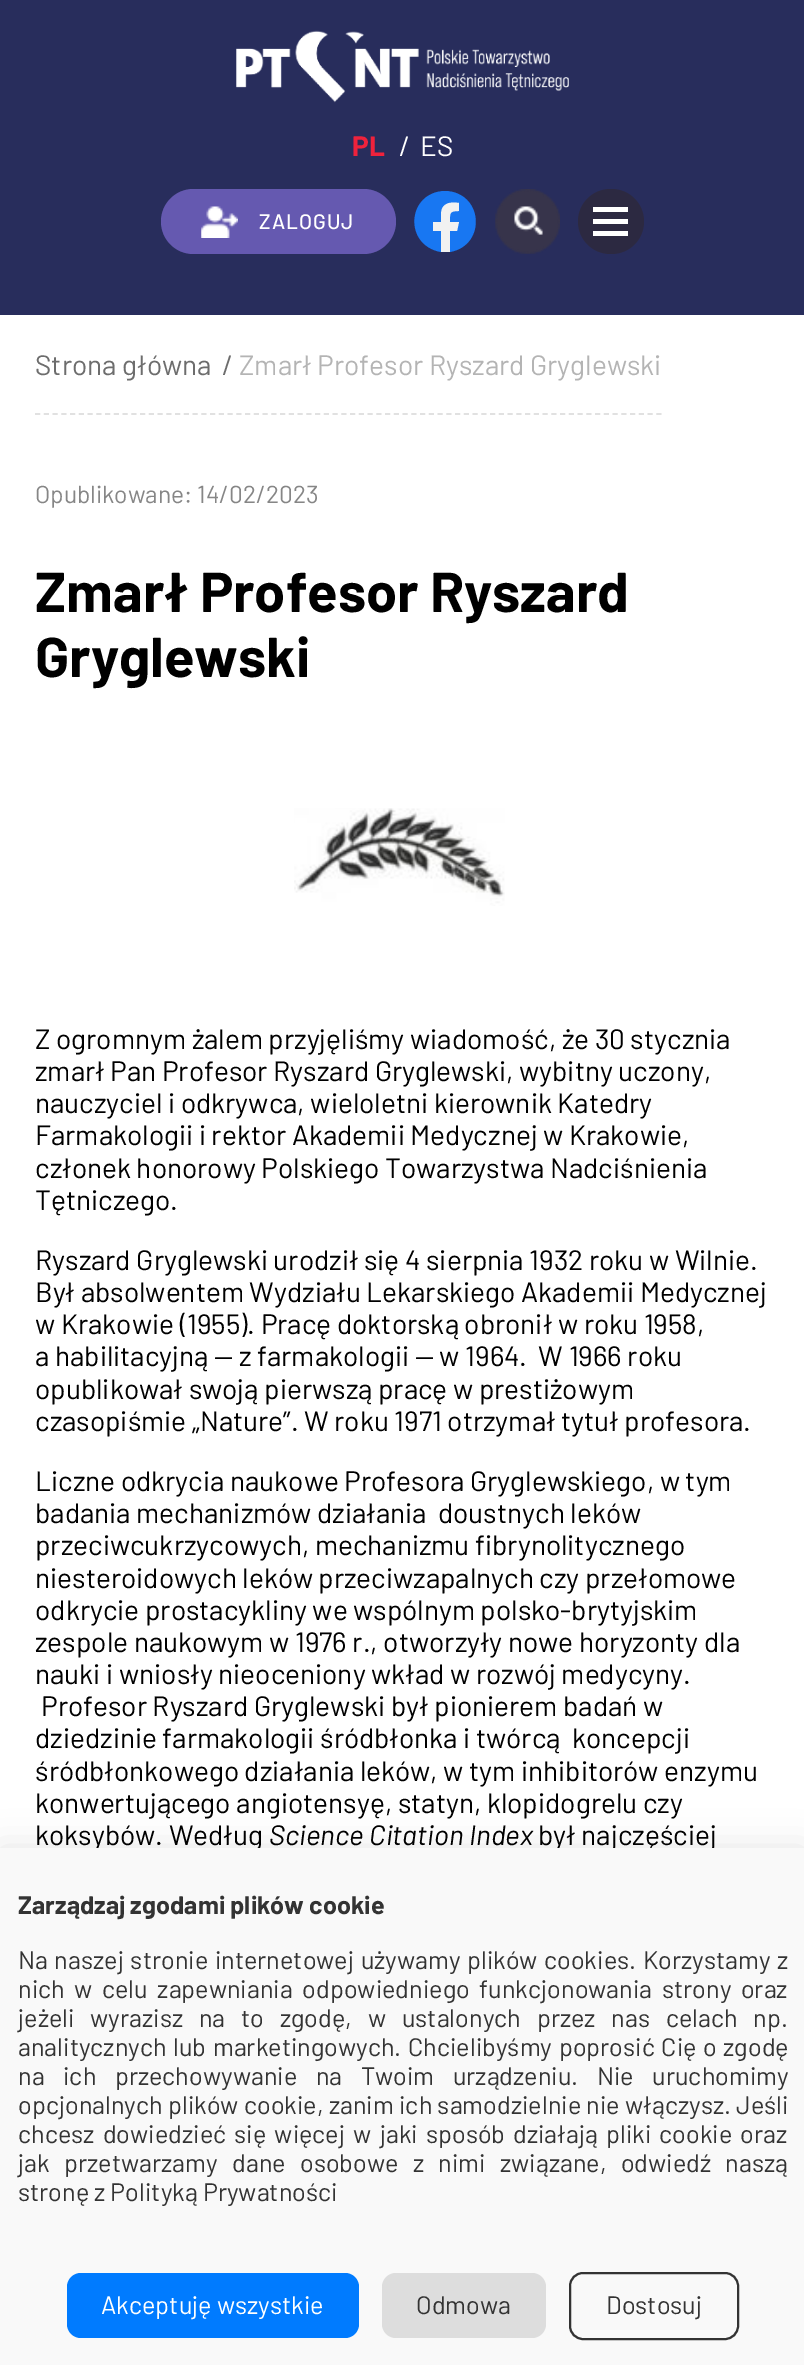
%!PS
<< /PageSize [804 2365] /PageUsesTransparency true >> setpagedevice
/rgb { 3 { 255 div 3 1 roll } repeat setrgbcolor } def
/font { [ exch dup neg 0 0 3 -1 roll 0 0 ] selectfont } def
/alpha { dup .setfillconstantalpha .setstrokeconstantalpha } def
/roundrect { 5 dict begin { /r /h /w /y /x } { exch def } forall
  x r add y moveto x w add y 2 copy h add r arct x w add y h add x 1 index r arct
  x y h add x y r arct x y 2 copy exch w add exch r arct closepath end } def
/shadow { 12 dict begin { /a /b /q /h /w /y /x } { exch def } forall gsave /was 0 def
  9 -2 -9 { dup b mul 4 div /e exch def 1 sub .425 mul 2.718 exch exp 1 add a .99 .min exch div /now exch def
    1 1 now sub 1 was sub div sub alpha /was now def
    w h .min e 2 mul add 0 gt { x e sub y e sub w e 2 mul add h e 2 mul add
      q e add b .6 mul add w h .min 2 div e add .min 0 .max roundrect fill } if } for grestore end } def
/picture { 5 dict begin { /h /w /y /x /name } { exch def } forall
  gsave x y translate w h scale
  w h 8 [w 0 0 h 0 0] name (r) file false 3 colorimage grestore end } def
0 .pushpdf14devicefilter
0 2365 translate 1 -1 scale
4 setmiterlimit
255 255 255 rgb
0 0 804 2365 rectfill
40 45 92 rgb
0 0 804 315 rectfill
(img/1.rgb) 236 30 333 73 picture
101 89 176 rgb
161 189 235 65 32.5 roundrect fill
(img/2.rgb) 201 206 37 32 picture
24 119 242 rgb
445 191 moveto 407 192 403 245 441 252 curveto 450 252 lineto 487 245 483 192 445 191 curveto closepath fill
241 241 241 rgb
450 231 moveto 457 231 lineto 459 222 lineto 450 222 lineto 450 213 449 211 459 211 curveto 459 203 lineto 451 202 441 202 441 215 curveto 441 222 lineto 433 222 lineto 433 231 lineto 441 231 lineto 441 252 lineto 450 252 lineto closepath fill
(img/3.rgb) 495 189 65 65 picture
44 41 65 rgb
578 189 66 65 32.5 roundrect fill
[
  [593 219 35 5 255 255 255]
  [593 207 35 5 255 255 255]
  [593 231 35 5 255 255 255]
] { aload pop rgb rectfill } forall
225 225 225 rgb
1.8 setlinewidth
[5.25 3.5] 0 setdash
35 414 moveto 661.5 414 lineto stroke
(img/4.rgb) 294 808 211 98 picture
0 0 0 rgb
0 1848 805 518 0 17.5 0.1 shadow
/Barlow-Bold 28 font
239 34 60 rgb
352 156 moveto (PL) show
/Barlow-Regular 28 font
255 255 255 rgb
399 156 moveto (/) show
420 156 moveto (ES) show
/Barlow-Medium 21 font
259 229 moveto 1 0 (ZALOGUJ) ashow
/Barlow-Regular 28 font
109 109 109 rgb
35 375 moveto (Strona główna) show
222 375 moveto (/) show
180 180 180 rgb
239 375 moveto (Zmarł Profesor Ryszard Gryglewski) show
/Barlow-Regular 24.5 font
134 134 134 rgb
35 503 moveto (Opublikowane: 14/02/2023) show
/Barlow-Bold 56 font
0 0 0 rgb
35 612 moveto (Zmarł Profesor Ryszard) show
35 677 moveto (Gryglewski) show
/Barlow-Regular 28 font
[
  [(Z ogromnym żalem przyjęliśmy wiadomość, że 30 stycznia) 35 1049]
  [(zmarł Pan Profesor Ryszard Gryglewski, wybitny uczony,) 35 1081]
  [(nauczyciel i odkrywca, wieloletni kierownik Katedry) 35 1113]
  [(Farmakologii i rektor Akademii Medycznej w Krakowie,) 35 1145]
  [(członek honorowy Polskiego Towarzystwa Nadciśnienia) 35 1178]
  [(Tętniczego.) 35 1210]
  [(Ryszard Gryglewski urodził się 4 sierpnia 1932 roku w Wilnie.) 35 1270]
  [(Był absolwentem Wydziału Lekarskiego Akademii Medycznej) 35 1302]
  [(w Krakowie \(1955\). Pracę doktorską obronił w roku 1958,) 35 1334]
  [(a habilitacyjną — z farmakologii — w 1964.  W 1966 roku) 35 1366]
  [(opublikował swoją pierwszą pracę w prestiżowym) 35 1399]
  [(czasopiśmie „Nature”. W roku 1971 otrzymał tytuł profesora.) 35 1431]
  [(Liczne odkrycia naukowe Profesora Gryglewskiego, w tym) 35 1491]
  [(badania mechanizmów działania  doustnych leków) 35 1523]
  [(przeciwcukrzycowych, mechanizmu fibrynolitycznego) 35 1555]
  [(niesteroidowych leków przeciwzapalnych czy przełomowe) 35 1588]
  [(odkrycie prostacykliny we wspólnym polsko-brytyjskim) 35 1620]
  [(zespole naukowym w 1976 r., otworzyły nowe horyzonty dla) 35 1652]
  [(nauki i wniosły nieoceniony wkład w rozwój medycyny.) 35 1684]
  [(Profesor Ryszard Gryglewski był pionierem badań w) 41 1716]
  [(dziedzinie farmakologii śródbłonka i twórcą) 35 1748]
  [(koncepcji) 572 1748]
  [(śródbłonkowego działania leków, w tym inhibitorów enzymu) 35 1781]
  [(konwertującego angiotensyę, statyn, klopidogrelu czy) 35 1813]
  [(koksybów. Według) 35 1845]
] { aload pop moveto show } forall
/Barlow-Italic 28 font
269 1845 moveto (Science Citation Index) show
/Barlow-Regular 28 font
538 1845 moveto (był najczęściej) show
249 249 249 rgb
0 1848 804 517 rectfill
/Barlow-Bold 25.2 font
51 51 51 rgb
18 1914 moveto (Zarządzaj zgodami plików cookie) show
/Barlow-Regular 25.2 font
18 1969 moveto 1.5 0 32 (Na naszej stronie internetowej używamy plików cookies. Korzystamy z) widthshow
18 1998 moveto 4.5 0 32 (nich w celu zapewniania odpowiedniego funkcjonowania strony oraz) widthshow
18 2027 moveto 10.75 0 32 (jeżeli wyrazisz na to zgodę, w ustalonych przez nas celach np.) widthshow
18 2056 moveto 1.5 0 32 (analitycznych lub marketingowych. Chcielibyśmy poprosić Cię o zgodę) widthshow
18 2085 moveto 13.5 0 32 (na ich przechowywanie na Twoim urządzeniu. Nie uruchomimy) widthshow
18 2114 moveto 0.25 0 32 (opcjonalnych plików cookie, zanim ich samodzielnie nie włączysz. Jeśli) widthshow
18 2143 moveto 3.1 0 32 (chcesz dowiedzieć się więcej w jaki sposób działają pliki cookie oraz) widthshow
18 2172 moveto 9.25 0 32 (jak przetwarzamy dane osobowe z nimi związane, odwiedź naszą) widthshow
18 2201 moveto (stronę z Polityką Prywatności) show
0 123 255 rgb
67 2273 292 65 14 roundrect fill
255 255 255 rgb
101 2314 moveto (Akceptuję wszystkie) show
221 221 221 rgb
382 2273 164 65 14 roundrect fill
51 51 51 rgb
416 2314 moveto (Odmowa) show
2 setlinewidth
[] 0 setdash
570 2273 168 66 13 roundrect stroke
606 2314 moveto (Dostosuj) show
.poppdf14devicefilter showpage
